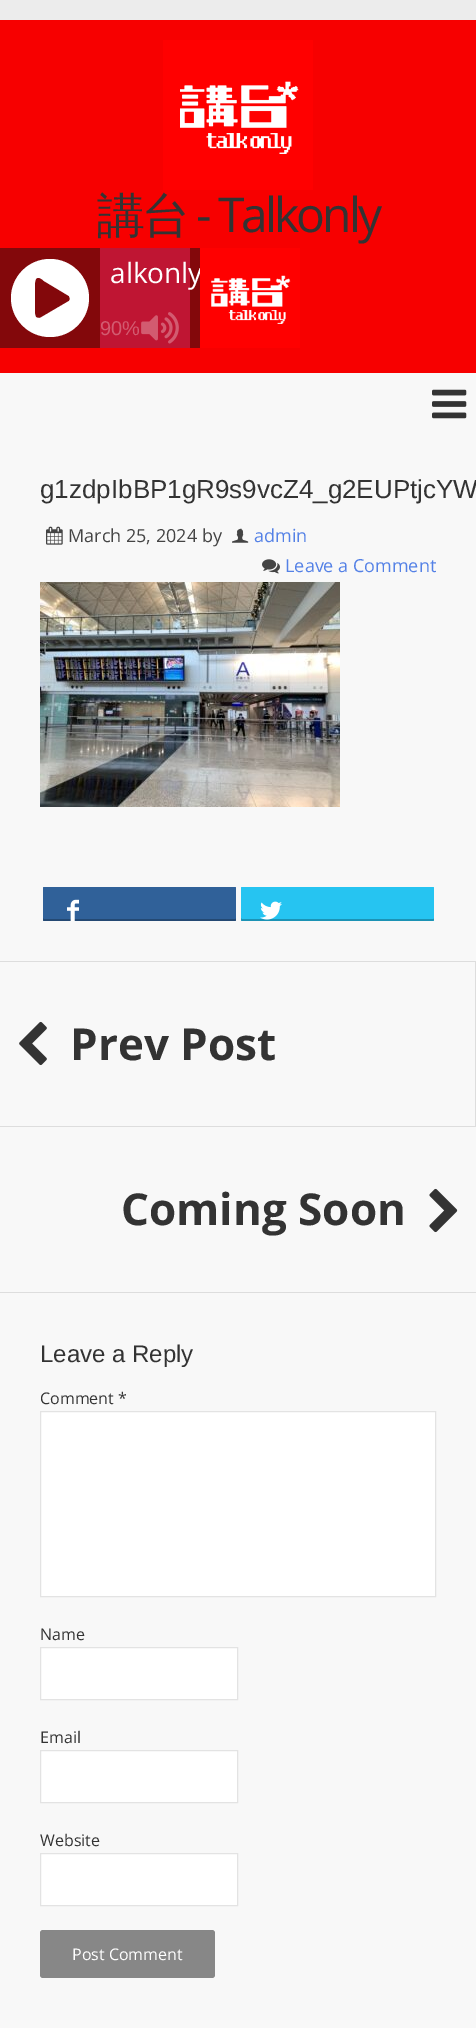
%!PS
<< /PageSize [476 2028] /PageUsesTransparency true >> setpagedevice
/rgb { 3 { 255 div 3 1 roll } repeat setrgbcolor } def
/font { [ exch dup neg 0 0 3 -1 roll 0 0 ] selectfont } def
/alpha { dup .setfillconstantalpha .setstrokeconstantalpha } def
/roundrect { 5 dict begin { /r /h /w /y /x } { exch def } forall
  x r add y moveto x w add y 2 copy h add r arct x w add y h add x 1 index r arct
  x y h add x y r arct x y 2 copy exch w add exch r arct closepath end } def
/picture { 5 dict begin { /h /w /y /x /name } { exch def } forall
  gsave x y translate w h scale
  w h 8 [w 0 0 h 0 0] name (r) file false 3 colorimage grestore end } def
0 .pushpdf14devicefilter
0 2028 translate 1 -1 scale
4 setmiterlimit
236 236 236 rgb
0 0 476 2028 rectfill
248 248 248 rgb
0 373 476 1655 rectfill
247 0 0 rgb
0 20 476 353 rectfill
(img/1.rgb) 163 40 150 150 picture
131 8 11 rgb
0 248 200 100 rectfill
255 255 255 rgb
89 298 moveto 89 319 72 337 50 337 curveto 28 337 11 319 11 298 curveto 11 277 28 259 50 259 curveto 72 259 89 277 89 298 curveto closepath 35 298 moveto 35 302 34 315 36 317 curveto 37 318 38 318 40 318 curveto 69 301 lineto 70 299 lineto 69 296 lineto 44 281 lineto 42 279 38 276 36 279 curveto 34 281 35 295 35 298 curveto closepath fill
191 21 51 rgb
100 248 90 100 rectfill
(img/3.rgb) 141 312 38 32 picture
(img/4.rgb) 432 389 35 30 picture
(img/5.rgb) 46 526 17 19 picture
(img/6.rgb) 232 528 17 15 picture
(img/7.rgb) 262 559 18 15 picture
(img/8.rgb) 40 582 300 225 picture
48 97 153 rgb
43 887 193 34 1 roundrect fill
0.25 alpha
0 0 0 rgb
43 918 moveto 43 919 43 921 44 921 curveto 235 921 lineto 236 921 236 919 236 918 curveto 236 919 lineto 44 919 lineto 43 919 43 919 43 918 curveto closepath fill
1 alpha
(img/9.rgb) 67 899 12 22 picture
38 196 241 rgb
241 887 193 34 1 roundrect fill
0.25 alpha
0 0 0 rgb
241 918 moveto 241 919 241 921 242 921 curveto 433 921 lineto 434 921 434 919 434 918 curveto 434 919 lineto 242 919 lineto 241 919 241 919 241 918 curveto closepath fill
1 alpha
(img/10.rgb) 260 901 22 19 picture
[
  [0 961 476 1 221 221 221]
  [0 1292 476 1 221 221 221]
  [475 962 1 165 221 221 221]
  [0 1126 476 1 221 221 221]
] { aload pop rgb rectfill } forall
(img/11.rgb) 19 1021 28 45 picture
(img/12.rgb) 429 1188 29 45 picture
255 255 255 rgb
40.5 1411.5 moveto 435.5 1411.5 lineto 435.5 1596.5 lineto 40.5 1596.5 lineto closepath gsave fill grestore
227 227 227 rgb
stroke
255 255 255 rgb
40.5 1647.5 moveto 237.5 1647.5 lineto 237.5 1699.5 lineto 40.5 1699.5 lineto closepath gsave fill grestore
227 227 227 rgb
stroke
255 255 255 rgb
40.5 1750.5 moveto 237.5 1750.5 lineto 237.5 1802.5 lineto 40.5 1802.5 lineto closepath gsave fill grestore
227 227 227 rgb
stroke
255 255 255 rgb
40.5 1853.5 moveto 237.5 1853.5 lineto 237.5 1905.5 lineto 40.5 1905.5 lineto closepath gsave fill grestore
227 227 227 rgb
stroke
135 135 135 rgb
40 1930 175 48 3 roundrect fill
/WenQuanYiZenHei-Medium 48 font
51 51 51 rgb
97 232 moveto -3 0 (講台) ashow
/OpenSans-Regular 48 font
196 232 moveto -3 0 (- Talkonly) ashow
/OpenSans-Regular 28 font
255 255 255 rgb
110 283 moveto (alkonly) show
(img/2.rgb) 200 248 100 100 picture
/LiberationSans-Regular 20 font
210 91 112 rgb
100 335 moveto (90%) show
/LiberationSans-Regular 26 font
51 51 51 rgb
40 498 moveto (g1zdpIbBP1gR9s9vcZ4_g2EUPtjcYW) show
/OpenSans-Regular 18 font
68 68 68 rgb
68 542 moveto (March 25, 2024 by) show
84 129 230 rgb
254 542 moveto (admin) show
285 572 moveto (Leave a Comment) show
/OpenSans-Bold 44 font
51 51 51 rgb
70 1060 moveto (Prev Post) show
121 1225 moveto (Coming Soon) show
/LiberationSans-Regular 24 font
40 1362 moveto (Leave a Reply) show
/OpenSans-Regular 16 font
[
  [(Comment *) 40 1404]
  [(Name) 40 1640]
  [(Email) 40 1743]
  [(Website) 40 1846]
] { aload pop moveto show } forall
255 255 255 rgb
72 1960 moveto (Post Comment) show
.poppdf14devicefilter showpage
